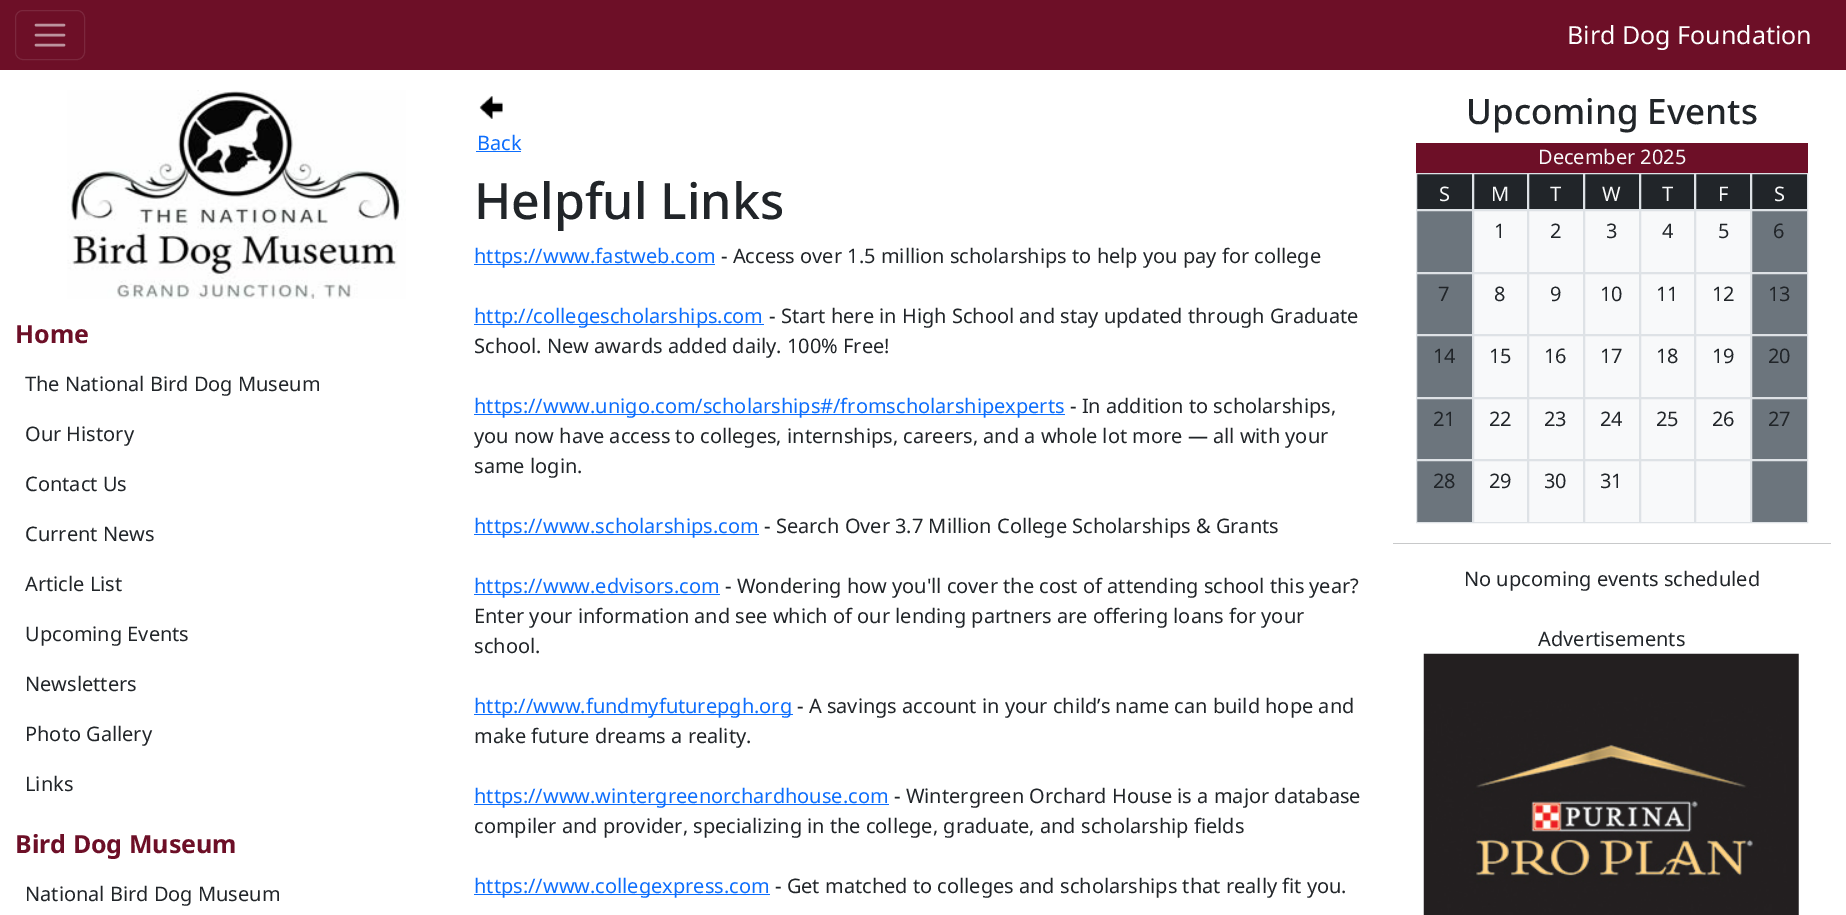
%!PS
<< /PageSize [1846 915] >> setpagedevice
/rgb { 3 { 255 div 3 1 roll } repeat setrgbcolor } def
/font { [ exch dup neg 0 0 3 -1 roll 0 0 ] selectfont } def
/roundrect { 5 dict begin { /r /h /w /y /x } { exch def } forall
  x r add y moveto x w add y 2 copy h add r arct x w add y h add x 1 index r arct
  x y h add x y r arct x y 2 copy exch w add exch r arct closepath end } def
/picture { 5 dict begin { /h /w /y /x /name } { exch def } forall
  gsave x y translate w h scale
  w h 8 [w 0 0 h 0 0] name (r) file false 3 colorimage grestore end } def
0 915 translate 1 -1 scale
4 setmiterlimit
255 255 255 rgb
0 0 1846 915 rectfill
109 15 39 rgb
0 0 1846 70 rectfill
124 39 61 rgb
15.5 10.5 69 49 7.5 roundrect stroke
189 147 158 rgb
2.5 setlinewidth
1 setlinecap
36 25 moveto 64 25 lineto 36 35 moveto 64 35 lineto 36 45 moveto 64 45 lineto stroke
(img/1.rgb) 67 90 339 209 picture
(img/2.rgb) 479 96 24 23 picture
[
  [476 151 45 1 13 110 253]
  [474 264 241 1 13 110 253]
  [474 324 290 1 13 110 253]
  [474 414 591 1 13 110 253]
  [474 534 285 1 13 110 253]
  [474 594 246 1 13 110 253]
  [474 714 319 1 13 110 253]
  [474 804 415 1 13 110 253]
  [474 894 296 1 13 110 253]
  [1416 143 392 30 109 15 39]
] { aload pop rgb rectfill } forall
33 37 41 rgb
1416.5 173.5 moveto 1472.5 173.5 lineto 1472.5 209.5 lineto 1416.5 209.5 lineto closepath gsave fill grestore
222 226 230 rgb
1 setlinewidth
0 setlinecap
stroke
33 37 41 rgb
1473.5 173.5 moveto 1527.5 173.5 lineto 1527.5 209.5 lineto 1473.5 209.5 lineto closepath gsave fill grestore
222 226 230 rgb
stroke
33 37 41 rgb
1528.5 173.5 moveto 1583.5 173.5 lineto 1583.5 209.5 lineto 1528.5 209.5 lineto closepath gsave fill grestore
222 226 230 rgb
stroke
33 37 41 rgb
1584.5 173.5 moveto 1639.5 173.5 lineto 1639.5 209.5 lineto 1584.5 209.5 lineto closepath gsave fill grestore
222 226 230 rgb
stroke
33 37 41 rgb
1640.5 173.5 moveto 1694.5 173.5 lineto 1694.5 209.5 lineto 1640.5 209.5 lineto closepath gsave fill grestore
222 226 230 rgb
stroke
33 37 41 rgb
1695.5 173.5 moveto 1750.5 173.5 lineto 1750.5 209.5 lineto 1695.5 209.5 lineto closepath gsave fill grestore
222 226 230 rgb
stroke
33 37 41 rgb
1751.5 173.5 moveto 1807.5 173.5 lineto 1807.5 209.5 lineto 1751.5 209.5 lineto closepath gsave fill grestore
222 226 230 rgb
stroke
108 117 125 rgb
1416.5 210.5 moveto 1472.5 210.5 lineto 1472.5 272.5 lineto 1416.5 272.5 lineto closepath gsave fill grestore
222 226 230 rgb
stroke
248 249 250 rgb
1473.5 210.5 moveto 1527.5 210.5 lineto 1527.5 272.5 lineto 1473.5 272.5 lineto closepath gsave fill grestore
222 226 230 rgb
stroke
248 249 250 rgb
1528.5 210.5 moveto 1583.5 210.5 lineto 1583.5 272.5 lineto 1528.5 272.5 lineto closepath gsave fill grestore
222 226 230 rgb
stroke
248 249 250 rgb
1584.5 210.5 moveto 1639.5 210.5 lineto 1639.5 272.5 lineto 1584.5 272.5 lineto closepath gsave fill grestore
222 226 230 rgb
stroke
248 249 250 rgb
1640.5 210.5 moveto 1694.5 210.5 lineto 1694.5 272.5 lineto 1640.5 272.5 lineto closepath gsave fill grestore
222 226 230 rgb
stroke
248 249 250 rgb
1695.5 210.5 moveto 1750.5 210.5 lineto 1750.5 272.5 lineto 1695.5 272.5 lineto closepath gsave fill grestore
222 226 230 rgb
stroke
108 117 125 rgb
1751.5 210.5 moveto 1807.5 210.5 lineto 1807.5 272.5 lineto 1751.5 272.5 lineto closepath gsave fill grestore
222 226 230 rgb
stroke
108 117 125 rgb
1416.5 273.5 moveto 1472.5 273.5 lineto 1472.5 334.5 lineto 1416.5 334.5 lineto closepath gsave fill grestore
222 226 230 rgb
stroke
248 249 250 rgb
1473.5 273.5 moveto 1527.5 273.5 lineto 1527.5 334.5 lineto 1473.5 334.5 lineto closepath gsave fill grestore
222 226 230 rgb
stroke
248 249 250 rgb
1528.5 273.5 moveto 1583.5 273.5 lineto 1583.5 334.5 lineto 1528.5 334.5 lineto closepath gsave fill grestore
222 226 230 rgb
stroke
248 249 250 rgb
1584.5 273.5 moveto 1639.5 273.5 lineto 1639.5 334.5 lineto 1584.5 334.5 lineto closepath gsave fill grestore
222 226 230 rgb
stroke
248 249 250 rgb
1640.5 273.5 moveto 1694.5 273.5 lineto 1694.5 334.5 lineto 1640.5 334.5 lineto closepath gsave fill grestore
222 226 230 rgb
stroke
248 249 250 rgb
1695.5 273.5 moveto 1750.5 273.5 lineto 1750.5 334.5 lineto 1695.5 334.5 lineto closepath gsave fill grestore
222 226 230 rgb
stroke
108 117 125 rgb
1751.5 273.5 moveto 1807.5 273.5 lineto 1807.5 334.5 lineto 1751.5 334.5 lineto closepath gsave fill grestore
222 226 230 rgb
stroke
108 117 125 rgb
1416.5 335.5 moveto 1472.5 335.5 lineto 1472.5 397.5 lineto 1416.5 397.5 lineto closepath gsave fill grestore
222 226 230 rgb
stroke
248 249 250 rgb
1473.5 335.5 moveto 1527.5 335.5 lineto 1527.5 397.5 lineto 1473.5 397.5 lineto closepath gsave fill grestore
222 226 230 rgb
stroke
248 249 250 rgb
1528.5 335.5 moveto 1583.5 335.5 lineto 1583.5 397.5 lineto 1528.5 397.5 lineto closepath gsave fill grestore
222 226 230 rgb
stroke
248 249 250 rgb
1584.5 335.5 moveto 1639.5 335.5 lineto 1639.5 397.5 lineto 1584.5 397.5 lineto closepath gsave fill grestore
222 226 230 rgb
stroke
248 249 250 rgb
1640.5 335.5 moveto 1694.5 335.5 lineto 1694.5 397.5 lineto 1640.5 397.5 lineto closepath gsave fill grestore
222 226 230 rgb
stroke
248 249 250 rgb
1695.5 335.5 moveto 1750.5 335.5 lineto 1750.5 397.5 lineto 1695.5 397.5 lineto closepath gsave fill grestore
222 226 230 rgb
stroke
108 117 125 rgb
1751.5 335.5 moveto 1807.5 335.5 lineto 1807.5 397.5 lineto 1751.5 397.5 lineto closepath gsave fill grestore
222 226 230 rgb
stroke
108 117 125 rgb
1416.5 398.5 moveto 1472.5 398.5 lineto 1472.5 459.5 lineto 1416.5 459.5 lineto closepath gsave fill grestore
222 226 230 rgb
stroke
248 249 250 rgb
1473.5 398.5 moveto 1527.5 398.5 lineto 1527.5 459.5 lineto 1473.5 459.5 lineto closepath gsave fill grestore
222 226 230 rgb
stroke
248 249 250 rgb
1528.5 398.5 moveto 1583.5 398.5 lineto 1583.5 459.5 lineto 1528.5 459.5 lineto closepath gsave fill grestore
222 226 230 rgb
stroke
248 249 250 rgb
1584.5 398.5 moveto 1639.5 398.5 lineto 1639.5 459.5 lineto 1584.5 459.5 lineto closepath gsave fill grestore
222 226 230 rgb
stroke
248 249 250 rgb
1640.5 398.5 moveto 1694.5 398.5 lineto 1694.5 459.5 lineto 1640.5 459.5 lineto closepath gsave fill grestore
222 226 230 rgb
stroke
248 249 250 rgb
1695.5 398.5 moveto 1750.5 398.5 lineto 1750.5 459.5 lineto 1695.5 459.5 lineto closepath gsave fill grestore
222 226 230 rgb
stroke
108 117 125 rgb
1751.5 398.5 moveto 1807.5 398.5 lineto 1807.5 459.5 lineto 1751.5 459.5 lineto closepath gsave fill grestore
222 226 230 rgb
stroke
108 117 125 rgb
1416.5 460.5 moveto 1472.5 460.5 lineto 1472.5 522.5 lineto 1416.5 522.5 lineto closepath gsave fill grestore
222 226 230 rgb
stroke
248 249 250 rgb
1473.5 460.5 moveto 1527.5 460.5 lineto 1527.5 522.5 lineto 1473.5 522.5 lineto closepath gsave fill grestore
222 226 230 rgb
stroke
248 249 250 rgb
1528.5 460.5 moveto 1583.5 460.5 lineto 1583.5 522.5 lineto 1528.5 522.5 lineto closepath gsave fill grestore
222 226 230 rgb
stroke
248 249 250 rgb
1584.5 460.5 moveto 1639.5 460.5 lineto 1639.5 522.5 lineto 1584.5 522.5 lineto closepath gsave fill grestore
222 226 230 rgb
stroke
248 249 250 rgb
1640.5 460.5 moveto 1694.5 460.5 lineto 1694.5 522.5 lineto 1640.5 522.5 lineto closepath gsave fill grestore
222 226 230 rgb
stroke
248 249 250 rgb
1695.5 460.5 moveto 1750.5 460.5 lineto 1750.5 522.5 lineto 1695.5 522.5 lineto closepath gsave fill grestore
222 226 230 rgb
stroke
108 117 125 rgb
1751.5 460.5 moveto 1807.5 460.5 lineto 1807.5 522.5 lineto 1751.5 522.5 lineto closepath gsave fill grestore
222 226 230 rgb
stroke
200 201 202 rgb
1393 543 438 1 rectfill
(img/3.rgb) 1423 653 376 262 picture
/NotoSans-Regular 25 font
255 255 255 rgb
1567 44 moveto (Bird Dog Foundation) show
/NotoSans-Bold 25 font
109 15 39 rgb
15 343 moveto (Home) show
/NotoSans-Regular 20 font
33 37 41 rgb
[
  [(The National Bird Dog Museum) 25 391]
  [(Our History) 25 441]
  [(Contact Us) 25 491]
  [(Current News) 25 541]
  [(Article List) 25 591]
  [(Upcoming Events) 25 641]
  [(Newsletters) 25 691]
  [(Photo Gallery) 25 741]
  [(Links) 25 791]
] { aload pop moveto show } forall
/NotoSans-Bold 25 font
109 15 39 rgb
15 853 moveto (Bird Dog Museum) show
/NotoSans-Regular 20 font
33 37 41 rgb
25 901 moveto (National Bird Dog Museum) show
13 110 253 rgb
477 150 moveto (Back) show
/NotoSans-Medium 50 font
33 37 41 rgb
474 219 moveto (Helpful Links) show
/NotoSans-Regular 20 font
13 110 253 rgb
474 263 moveto (https://www.fastweb.com) show
33 37 41 rgb
721 263 moveto (- Access over 1.5 million scholarships to help you pay for college) show
13 110 253 rgb
474 323 moveto (http://collegescholarships.com) show
33 37 41 rgb
769 323 moveto (- Start here in High School and stay updated through Graduate) show
474 353 moveto (School. New awards added daily. 100% Free!) show
13 110 253 rgb
474 413 moveto (https://www.unigo.com/scholarships#/fromscholarshipexperts) show
33 37 41 rgb
[
  [(- In addition to scholarships,) 1070 413]
  [(you now have access to colleges, internships, careers, and a whole lot more — all with your) 474 443]
  [(same login.) 474 473]
] { aload pop moveto show } forall
13 110 253 rgb
474 533 moveto (https://www.scholarships.com) show
33 37 41 rgb
764 533 moveto (- Search Over 3.7 Million College Scholarships & Grants) show
13 110 253 rgb
474 593 moveto (https://www.edvisors.com) show
33 37 41 rgb
[
  [(- Wondering how you'll cover the cost of attending school this year?) 725 593]
  [(Enter your information and see which of our lending partners are offering loans for your) 474 623]
  [(school.) 474 653]
] { aload pop moveto show } forall
13 110 253 rgb
474 713 moveto (http://www.fundmyfuturepgh.org) show
33 37 41 rgb
797 713 moveto (- A savings account in your child’s name can build hope and) show
474 743 moveto (make future dreams a reality.) show
13 110 253 rgb
474 803 moveto (https://www.wintergreenorchardhouse.com) show
33 37 41 rgb
894 803 moveto (- Wintergreen Orchard House is a major database) show
474 833 moveto (compiler and provider, specializing in the college, graduate, and scholarship fields) show
13 110 253 rgb
474 893 moveto (https://www.collegexpress.com) show
33 37 41 rgb
775 893 moveto (- Get matched to colleges and scholarships that really fit you.) show
/NotoSans-Medium 35 font
1466 124 moveto (Upcoming Events) show
/NotoSans-Regular 20 font
248 249 250 rgb
[
  [(December 2025) 1538 164]
  [(S) 1439 201]
  [(M) 1491 201]
  [(T) 1550 201]
  [(W) 1602 201]
  [(T) 1662 201]
  [(F) 1718 201]
  [(S) 1774 201]
] { aload pop moveto show } forall
33 37 41 rgb
[
  [(1) 1494 238]
  [(2) 1550 238]
  [(3) 1606 238]
  [(4) 1662 238]
  [(5) 1718 238]
  [(6) 1773 238]
  [(7) 1438 301]
  [(8) 1494 301]
  [(9) 1550 301]
  [(10) 1600 301]
  [(11) 1656 301]
  [(12) 1712 301]
  [(13) 1768 301]
  [(14) 1433 363]
  [(15) 1489 363]
  [(16) 1544 363]
  [(17) 1600 363]
  [(18) 1656 363]
  [(19) 1712 363]
  [(20) 1768 363]
  [(21) 1433 426]
  [(22) 1489 426]
  [(23) 1544 426]
  [(24) 1600 426]
  [(25) 1656 426]
  [(26) 1712 426]
  [(27) 1768 426]
  [(28) 1433 488]
  [(29) 1489 488]
  [(30) 1544 488]
  [(31) 1600 488]
  [(No upcoming events scheduled) 1464 586]
  [(Advertisements) 1538 646]
] { aload pop moveto show } forall
showpage
